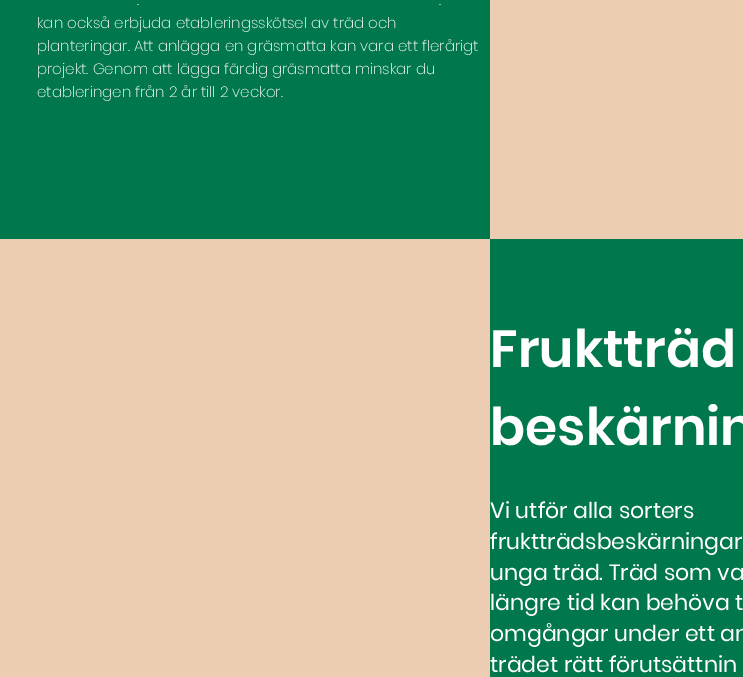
%!PS
<< /PageSize [743 677] >> setpagedevice
/rgb { 3 { 255 div 3 1 roll } repeat setrgbcolor } def
/font { [ exch dup neg 0 0 3 -1 roll 0 0 ] selectfont } def
0 677 translate 1 -1 scale
4 setmiterlimit
0 120 76 rgb
0 0 743 677 rectfill
236 205 178 rgb
490 0 253 239 rectfill
0 239 490 438 rectfill
/Poppins-ExtraLight 15 font
255 255 255 rgb
[
  [(.) 137 5]
  [(.) 439 5]
  [(kan också erbjuda etableringsskötsel av träd och) 37 28]
  [(planteringar. Att anlägga en gräsmatta kan vara ett flerårigt) 37 51]
  [(projekt. Genom att lägga färdig gräsmatta minskar du) 37 74]
  [(etableringen från 2 år till 2 veckor.) 37 97]
] { aload pop moveto show } forall
/Poppins-SemiBold 52 font
490 367 moveto (Fruktträd) show
490 445 moveto (beskärnin) show
/Poppins-Regular 22 font
[
  [(Vi utför alla sorters) 490 518]
  [(fruktträdsbeskärningar) 490 549]
  [(unga träd. Träd som va) 490 580]
  [(längre tid kan behöva t) 490 610]
  [(omgångar under ett an) 490 641]
  [(trädet rätt förutsättnin) 490 672]
] { aload pop moveto show } forall
showpage
